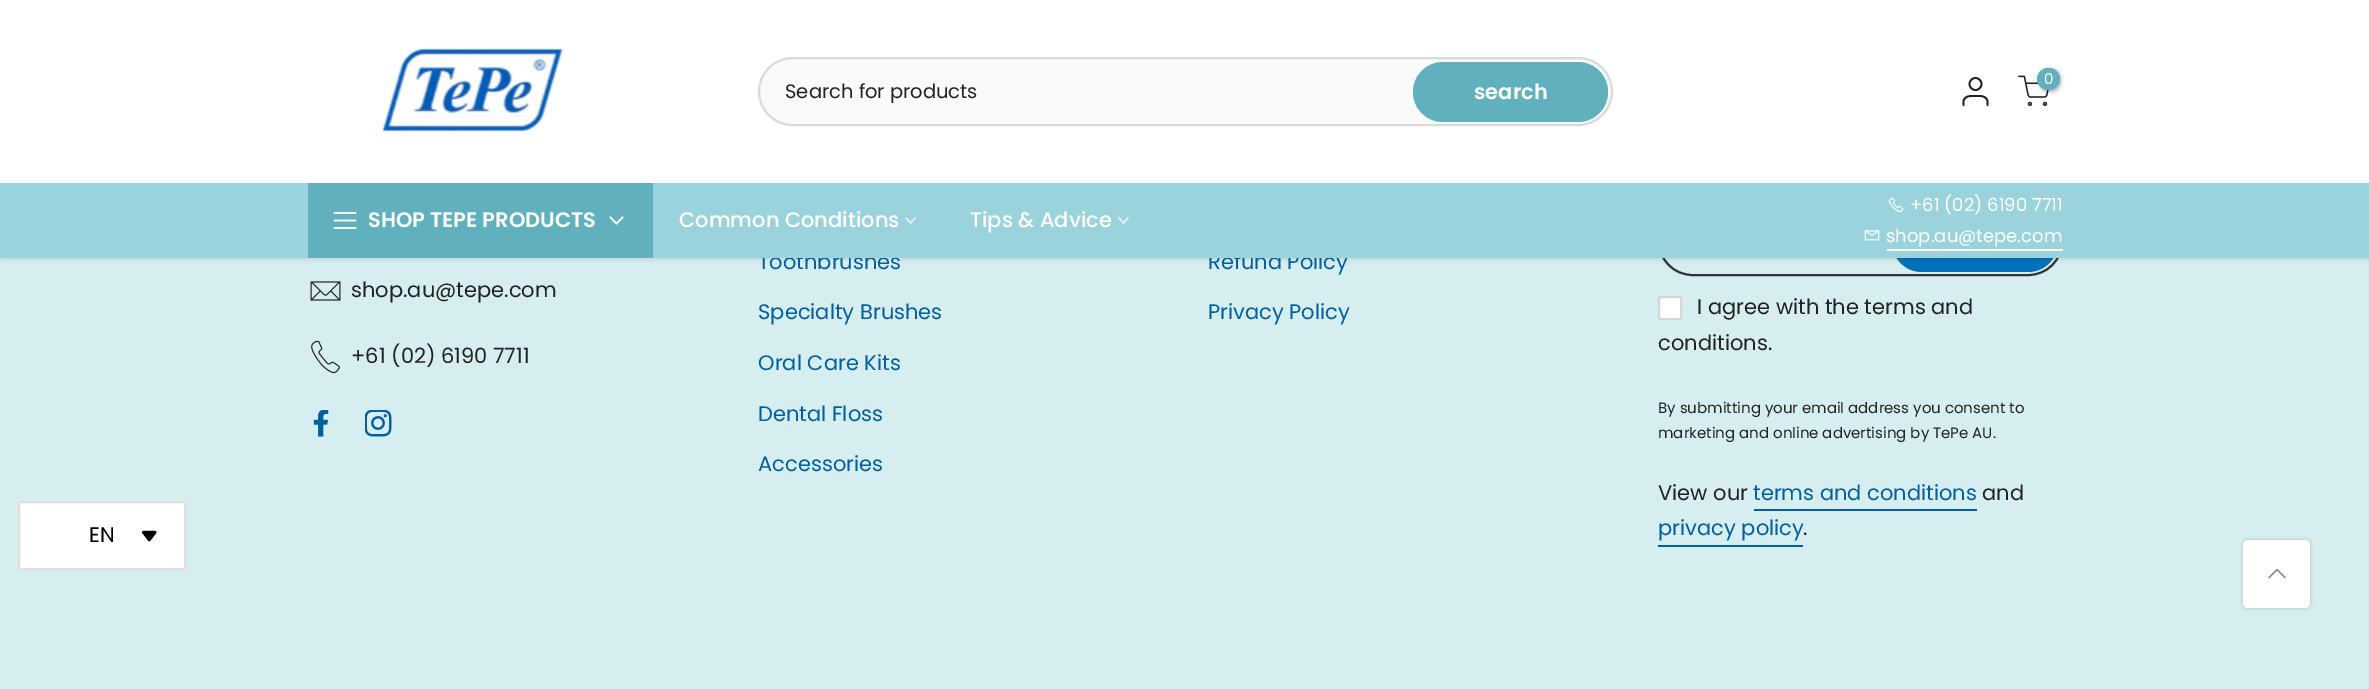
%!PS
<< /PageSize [2369 689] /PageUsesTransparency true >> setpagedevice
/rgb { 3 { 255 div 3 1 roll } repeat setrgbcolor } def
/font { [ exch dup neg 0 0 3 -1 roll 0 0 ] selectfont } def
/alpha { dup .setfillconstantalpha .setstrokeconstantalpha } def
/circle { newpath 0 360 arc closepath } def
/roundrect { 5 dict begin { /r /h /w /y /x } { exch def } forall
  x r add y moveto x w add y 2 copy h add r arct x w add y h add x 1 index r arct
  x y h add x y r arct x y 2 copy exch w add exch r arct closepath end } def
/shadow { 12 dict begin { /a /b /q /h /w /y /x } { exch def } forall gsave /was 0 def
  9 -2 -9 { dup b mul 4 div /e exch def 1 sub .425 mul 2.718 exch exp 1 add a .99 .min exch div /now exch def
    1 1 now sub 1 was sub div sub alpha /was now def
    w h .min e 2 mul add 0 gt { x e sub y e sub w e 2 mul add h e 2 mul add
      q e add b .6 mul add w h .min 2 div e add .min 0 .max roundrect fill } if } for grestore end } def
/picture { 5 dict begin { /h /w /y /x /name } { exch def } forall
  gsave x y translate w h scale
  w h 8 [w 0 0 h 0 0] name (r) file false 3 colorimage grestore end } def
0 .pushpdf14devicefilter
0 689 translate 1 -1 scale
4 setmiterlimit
214 238 240 rgb
0 0 2369 689 rectfill
51 51 51 rgb
2 setlinewidth
1659 208 403 67 33.5 roundrect stroke
0 114 188 rgb
1892 212 166 60 30 roundrect fill
0 0 0 rgb
0 2 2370 258 0 2 0.1 shadow
255 255 255 rgb
0 0 2369 183 rectfill
(img/2.rgb) 382 48 182 84 picture
2.8 setlinewidth
482.5 21.5 moveto 456.5 47.5 lineto 482.5 47.5 moveto 456.5 21.5 lineto stroke
19 502 moveto 185 502 lineto 185 569 lineto 19 569 lineto closepath gsave fill grestore
224 224 224 rgb
2 setlinewidth
stroke
(img/1.rgb) 141 530 16 12 picture
34 34 34 rgb
1.8 setlinewidth
1975.5 84 6 circle stroke
1 setlinecap
1 setlinejoin
1987.5 105 moveto 1987.5 101 lineto 1986 95 1980 96 1975.5 96 curveto 1971 96 1965 95 1963.5 101 curveto 1963.5 105 lineto stroke
(img/3.rgb) 2018 75 31 32 picture
0 0 0 rgb
2039 69 22 23 11 2 0.3 shadow
96 176 189 rgb
2037 68 23 22 11 roundrect fill
250 250 250 rgb
759 58 853 67 33.5 roundrect gsave fill grestore
218 218 218 rgb
2 setlinewidth
0 setlinecap
0 setlinejoin
stroke
96 176 189 rgb
1413 62 195 60 30 roundrect fill
(img/7.rgb) 310 281 31 20 picture
(img/8.rgb) 311 340 29 34 picture
(img/9.rgb) 313 410 16 27 picture
(img/10.rgb) 365 410 27 27 picture
255 255 255 rgb
1659 297 22 22 2 roundrect gsave fill grestore
212 214 216 rgb
stroke
0 95 158 rgb
1754 509 223 2 rectfill
1658 545 145 2 rectfill
0 0 0 rgb
2243 540 67 68 5 2 0.2 shadow
255 255 255 rgb
2243 540 67 68 5 roundrect fill
(img/11.rgb) 2268 569 18 10 picture
/Poppins-Regular 21 font
0 0 0 rgb
89 542 moveto (EN) show
/Poppins-Regular 15 font
255 255 255 rgb
2044 84 moveto (0) show
/Poppins-Regular 19.5 font
34 34 34 rgb
785 98 moveto (Search for products) show
/Poppins-SemiBold 21 font
255 255 255 rgb
1474 99 moveto (search) show
/Poppins-Regular 21 font
34 34 34 rgb
351 297 moveto (shop.au@tepe.com) show
351 363 moveto (+61 \(02\) 6190 7711) show
0 95 158 rgb
[
  [(Toothbrushes) 758 269]
  [(Specialty Brushes) 758 319]
  [(Oral Care Kits) 758 370]
  [(Dental Floss) 758 421]
  [(Accessories) 758 471]
  [(Refund Policy) 1208 269]
] { aload pop moveto show } forall
155 211 221 rgb
0 183 2369 75 rectfill
235 246 248 rgb
1.3 setlinewidth
2 setlinecap
1128 218 moveto 1123.5 223 lineto 1119 218 lineto stroke
/Poppins-Medium 21 font
255 255 255 rgb
970 227 moveto (Tips & Advice) show
235 246 248 rgb
915 218 moveto 910.5 223 lineto 906 218 lineto stroke
255 255 255 rgb
679 227 moveto (Common Conditions) show
96 176 189 rgb
308 183 345 75 rectfill
255 255 255 rgb
1.6 setlinewidth
622.5 217.5 moveto 616.5 223.5 lineto 610.5 217.5 lineto stroke
/Poppins-SemiBold 21 font
368 227 moveto (SHOP TEPE PRODUCTS) show
(img/4.rgb) 333 212 24 17 picture
/Poppins-Regular 18 font
1886 242 moveto (shop.au@tepe.com) show
1887 249 176 2 rectfill
(img/6.rgb) 1864 230 16 11 picture
1910 211 moveto (+61 \(02\) 6190 7711) show
(img/5.rgb) 1888 197 16 15 picture
/Poppins-Regular 21 font
0 95 158 rgb
1208 319 moveto (Privacy Policy) show
34 34 34 rgb
1697 314 moveto (I agree with the terms and) show
1658 350 moveto (conditions.) show
/Poppins-Regular 15 font
1658 413 moveto (By submitting your email address you consent to) show
1658 438 moveto (marketing and online advertising by TePe AU.) show
/Poppins-Regular 21 font
1658 500 moveto (View our) show
0 95 158 rgb
1753 500 moveto (terms and conditions) show
34 34 34 rgb
1982 500 moveto (and) show
0 95 158 rgb
1658 535 moveto (privacy policy) show
34 34 34 rgb
1803 535 moveto (.) show
.poppdf14devicefilter showpage
